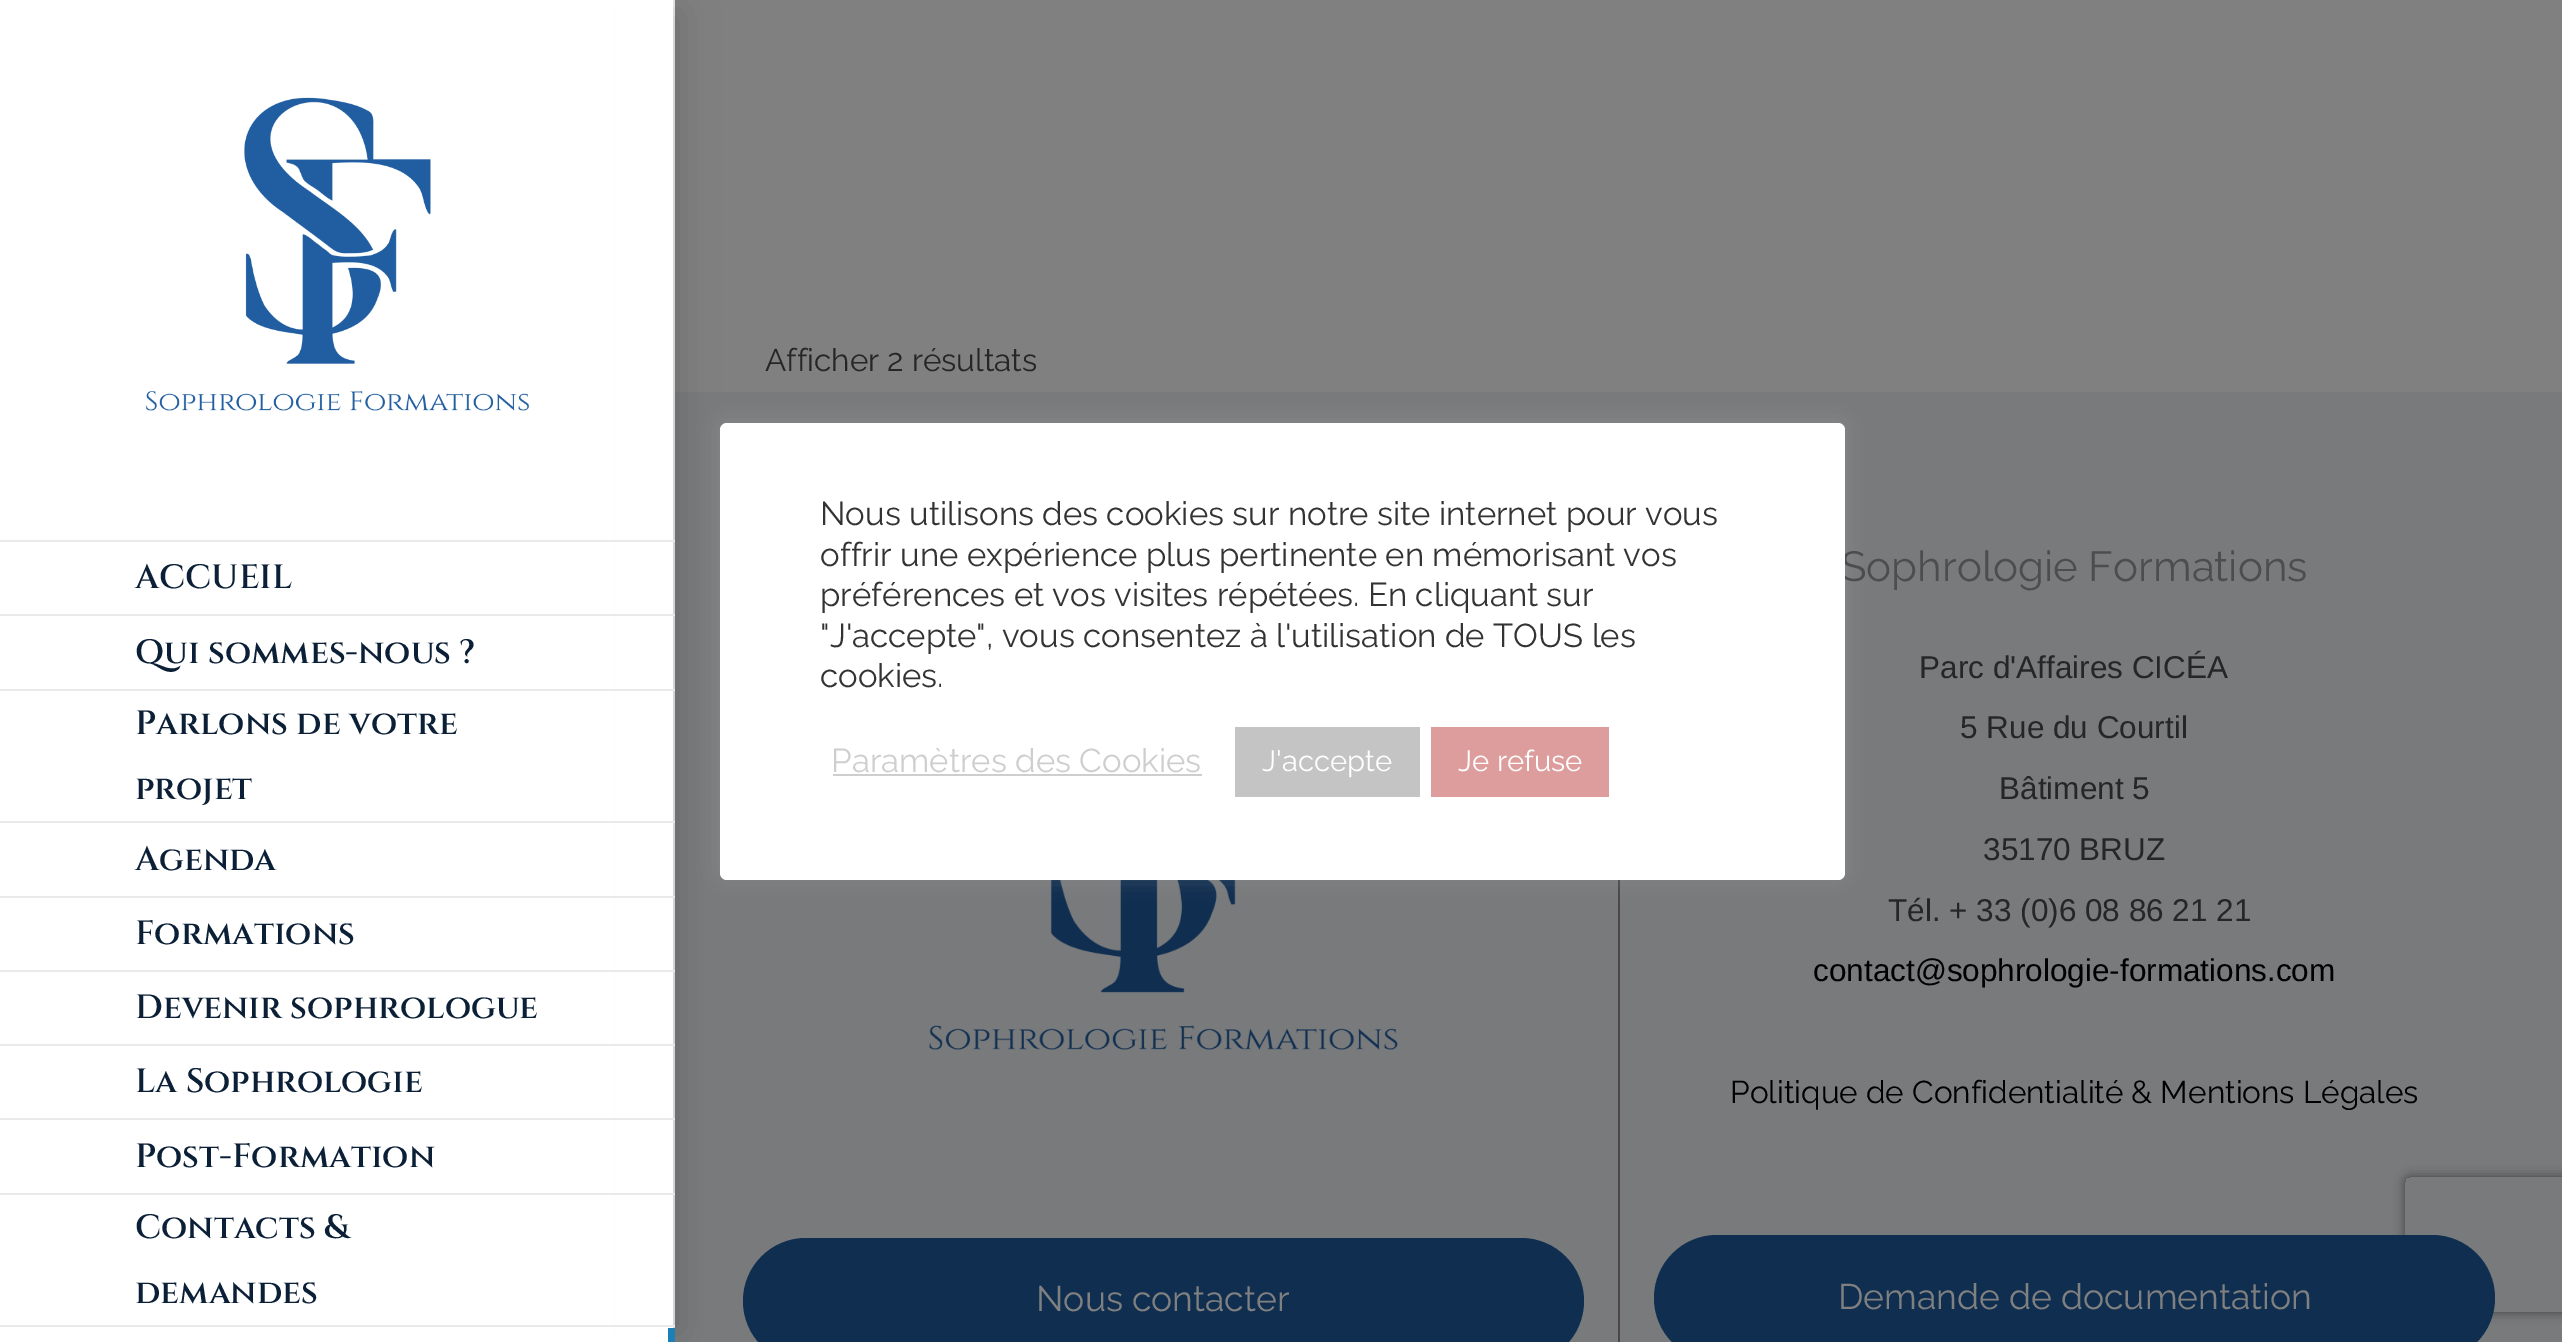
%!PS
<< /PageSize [2562 1342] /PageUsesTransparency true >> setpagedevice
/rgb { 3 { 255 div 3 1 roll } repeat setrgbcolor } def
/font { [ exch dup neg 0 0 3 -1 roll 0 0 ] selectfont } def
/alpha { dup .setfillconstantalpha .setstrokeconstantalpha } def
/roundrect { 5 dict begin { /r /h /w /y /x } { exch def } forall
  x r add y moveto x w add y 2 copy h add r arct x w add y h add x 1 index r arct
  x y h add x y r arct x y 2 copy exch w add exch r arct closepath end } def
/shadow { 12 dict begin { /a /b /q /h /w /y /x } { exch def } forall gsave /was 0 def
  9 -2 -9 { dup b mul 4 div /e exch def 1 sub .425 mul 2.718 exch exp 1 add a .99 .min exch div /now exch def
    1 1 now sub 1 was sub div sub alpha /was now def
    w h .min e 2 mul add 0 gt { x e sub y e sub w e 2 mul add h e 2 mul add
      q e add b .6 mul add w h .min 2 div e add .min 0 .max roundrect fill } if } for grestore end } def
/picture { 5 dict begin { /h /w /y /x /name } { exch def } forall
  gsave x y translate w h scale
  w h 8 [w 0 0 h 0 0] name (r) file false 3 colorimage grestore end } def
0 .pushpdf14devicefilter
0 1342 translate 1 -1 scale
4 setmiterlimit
128 128 128 rgb
0 0 2562 1342 rectfill
[
  [675 392 1887 950 120 122 124]
  [0 0 673 1342 255 255 255]
  [673 0 2 1328 234 234 234]
] { aload pop rgb rectfill } forall
gsave
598 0 moveto 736 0 lineto 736 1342 lineto 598 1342 lineto closepath 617 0 moveto 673 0 lineto 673 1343 lineto 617 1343 lineto closepath eoclip newpath
0 0 0 rgb
650 11 34 1321 0 17 0.14 shadow
grestore
(img/1.rgb) 146 97 384 314 picture
[
  [0 540 675 2 234 234 234]
  [0 614 675 2 234 234 234]
  [0 689 675 2 234 234 234]
  [0 821 675 2 234 234 234]
  [0 896 675 2 234 234 234]
  [0 970 675 2 234 234 234]
  [0 1044 675 2 234 234 234]
  [0 1118 675 2 234 234 234]
  [0 1193 675 2 234 234 234]
  [0 1325 675 2 234 234 234]
] { aload pop rgb rectfill } forall
26 128 182 rgb
675 1328 moveto 675 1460 lineto 668 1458 lineto 668 1328 lineto closepath fill
75 71 71 rgb
1618 880 2 462 rectfill
(img/2.rgb) 929 880 469 170 picture
16 47 80 rgb
743 1238 841 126 63 roundrect fill
gsave
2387 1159 moveto 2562 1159 lineto 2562 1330 lineto 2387 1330 lineto closepath 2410 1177 moveto 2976 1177 lineto 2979 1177 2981 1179 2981 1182 curveto 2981 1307 lineto 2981 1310 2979 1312 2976 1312 curveto 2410 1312 lineto 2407 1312 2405 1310 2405 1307 curveto 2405 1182 lineto 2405 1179 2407 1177 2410 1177 curveto closepath eoclip newpath
61 63 65 rgb
2405 1177 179 135 5 5.5 1 shadow
grestore
1654 1235 841 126 63 roundrect fill
172 171 171 rgb
720 421 1125 457 7 11 0.3 shadow
/Raleway-Regular 31.5 font
38 38 38 rgb
765 371 moveto (Afficher 2 résultats) show
/Cinzel-SemiBold 33.75 font
11 32 55 rgb
[
  [(ACCUEIL) 135 588]
  [(Qui sommes-nous ?) 135 663]
  [(Parlons de votre) 135 734]
  [(projet) 135 799]
  [(Agenda) 135 870]
  [(Formations) 135 944]
  [(Devenir sophrologue) 135 1018]
  [(La Sophrologie) 135 1092]
  [(Post-Formation) 135 1167]
  [(Contacts &) 135 1238]
  [(demandes) 135 1303]
] { aload pop moveto show } forall
/Raleway-Regular 35.5 font
128 128 128 rgb
1036 1311 moveto (Nous contacter) show
/Raleway-Regular 42 font
77 77 77 rgb
1841 581 moveto (Sophrologie Formations) show
/LiberationSans-Regular 31.5 font
38 38 38 rgb
[
  [(Parc d'Affaires CICÉA) 1919 678]
  [(5 Rue du Courtil) 1960 738]
  [(Bâtiment 5) 1999 799]
  [(35170 BRUZ) 1983 860]
  [(Tél. + 33 \(0\)6 08 86 21 21) 1888 921]
] { aload pop moveto show } forall
0 0 0 rgb
1813 981 moveto (contact@sophrologie-formations.com) show
/Raleway-Regular 31.5 font
1730 1103 moveto (Politique de Confidentialité & Mentions Légales) show
/Raleway-Regular 35.5 font
128 128 128 rgb
1838 1309 moveto (Demande de documentation) show
255 255 255 rgb
720 423 1125 457 7 roundrect fill
/Raleway-Regular 33 font
51 51 51 rgb
[
  [(Nous utilisons des cookies sur notre site internet pour vous) 820 525]
  [(offrir une expérience plus pertinente en mémorisant vos) 820 566]
  [(préférences et vos visites répétées. En cliquant sur) 820 606]
  [("J'accepte", vous consentez à l'utilisation de TOUS les) 820 647]
  [(cookies.) 820 687]
] { aload pop moveto show } forall
206 206 206 rgb
831 772 moveto (Paramètres des Cookies) show
833 774 369 2 rectfill
196 196 196 rgb
1235 727 185 70 rectfill
/Raleway-Regular 29.25 font
255 255 255 rgb
1262 771 moveto (J'accepte) show
221 157 157 rgb
1431 727 178 70 rectfill
255 255 255 rgb
1458 771 moveto (Je refuse) show
.poppdf14devicefilter showpage
